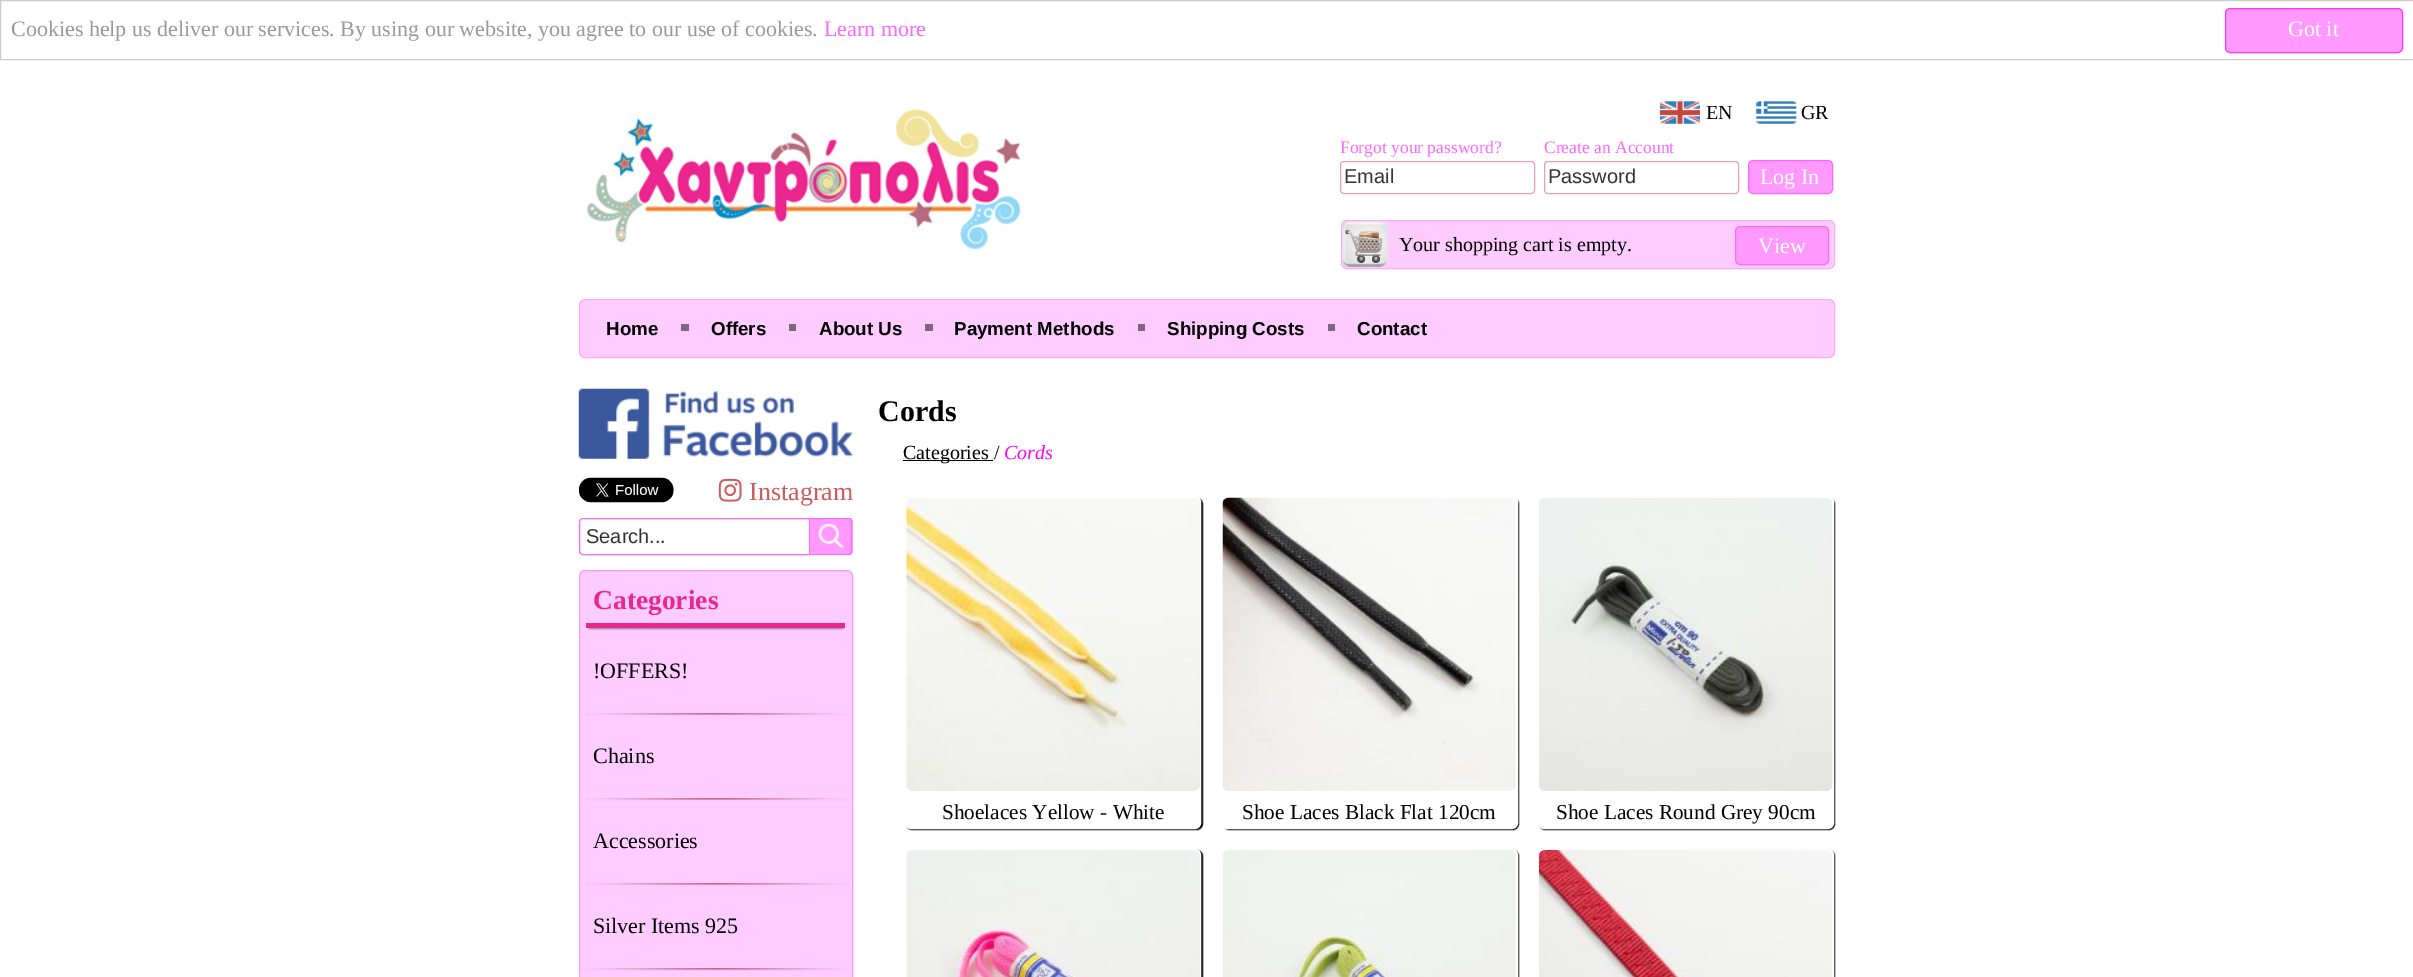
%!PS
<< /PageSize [2413 977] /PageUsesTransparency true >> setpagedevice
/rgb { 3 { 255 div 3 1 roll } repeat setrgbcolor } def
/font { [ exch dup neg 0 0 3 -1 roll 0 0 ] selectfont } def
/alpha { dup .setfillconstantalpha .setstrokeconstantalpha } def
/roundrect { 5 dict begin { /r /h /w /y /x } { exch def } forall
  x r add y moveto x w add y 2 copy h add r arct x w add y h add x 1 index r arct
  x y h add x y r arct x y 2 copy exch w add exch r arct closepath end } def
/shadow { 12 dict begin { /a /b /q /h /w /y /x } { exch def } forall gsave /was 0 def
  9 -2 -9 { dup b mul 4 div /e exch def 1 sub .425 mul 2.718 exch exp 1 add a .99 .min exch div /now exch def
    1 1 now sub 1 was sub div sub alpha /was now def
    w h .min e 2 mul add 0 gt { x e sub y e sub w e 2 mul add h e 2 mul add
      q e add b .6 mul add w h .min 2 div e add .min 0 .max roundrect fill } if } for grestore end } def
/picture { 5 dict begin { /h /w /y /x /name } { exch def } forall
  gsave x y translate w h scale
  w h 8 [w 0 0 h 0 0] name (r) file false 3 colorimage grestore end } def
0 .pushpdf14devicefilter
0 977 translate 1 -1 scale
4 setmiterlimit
255 255 255 rgb
0 0 2413 977 rectfill
204 204 204 rgb
0.5 0.5 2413 59 rectstroke
255 153 255 rgb
2225.5 8.5 177 44 4.5 roundrect gsave fill grestore
255 51 255 rgb
stroke
(img/1.rgb) 586 108 435 142 picture
(img/2.rgb) 1660 101 40 23 picture
(img/3.rgb) 1756 101 41 23 picture
234 157 188 rgb
1340.5 161.5 194 32 3.5 roundrect stroke
1544.5 161.5 194 32 3.5 roundrect stroke
255 153 255 rgb
1748.5 160.5 84 33 4.5 roundrect gsave fill grestore
255 102 255 rgb
stroke
255 204 255 rgb
1341.5 220.5 493 48 5.5 roundrect gsave fill grestore
255 170 255 rgb
stroke
(img/4.rgb) 1342 221 46 46 picture
255 153 255 rgb
1735.5 226.5 93 38 4.5 roundrect gsave fill grestore
255 102 255 rgb
stroke
255 204 255 rgb
579.5 299.5 1255 58 5.5 roundrect gsave fill grestore
255 170 255 rgb
stroke
[
  [681 324 8 7 128 102 128]
  [789 324 7 7 128 102 128]
  [925 324 8 7 128 102 128]
  [1138 324 7 7 128 102 128]
  [1328 324 7 7 128 102 128]
] { aload pop rgb rectfill } forall
(img/5.rgb) 578 388 275 71 picture
(img/6.rgb) 578 477 96 26 picture
(img/7.rgb) 718 478 24 24 picture
255 102 255 rgb
583 518.5 moveto 809.5 518.5 lineto 809.5 554.5 lineto 583 554.5 lineto 581 554.5 579.5 553 579.5 551 curveto 579.5 522 lineto 579.5 520 581 518.5 583 518.5 curveto closepath stroke
255 153 255 rgb
810 518 moveto 849 518 lineto 851 518 853 520 853 522 curveto 853 551 lineto 853 553 851 555 849 555 curveto 810 555 lineto closepath fill
(img/8.rgb) 818 523 26 26 picture
255 102 255 rgb
810 518 moveto 849 518 lineto 851 518 852 519 852 521 curveto 852 551 lineto 852 553 851 555 849 555 curveto 810 555 lineto closepath 810 519 moveto 849 519 lineto 850 519 851 520 851 521 curveto 851 551 lineto 851 553 850 554 849 554 curveto 810 554 lineto closepath eofill
255 204 255 rgb
579.5 570.5 273 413 5.5 roundrect gsave fill grestore
255 153 255 rgb
stroke
gsave
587 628 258 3 rectclip
128 128 128 rgb
589 584 254 45 0 1 1 shadow
grestore
236 38 143 rgb
586 623 259 5 rectfill
gsave 580 713 moveto 851 713 lineto 851 716 lineto 580 716 lineto closepath clip newpath 716 714 translate 192 1.8 scale
<< /ShadingType 3 /ColorSpace /DeviceRGB /Coords [0 0 0 0 0 1] /Extend [true true] /Function << /FunctionType 3 /Domain [0 1] /Functions [<< /FunctionType 2 /Domain [0 1] /C0 [0.753 0.4 0.502] /C1 [1 0.776 0.969] /N 1 >> << /FunctionType 2 /Domain [0 1] /C0 [1 0.776 0.969] /C1 [1 0.776 0.969] /N 1 >>] /Bounds [0.65] /Encode [0 1 0 1] >> >> shfill grestore
gsave 580 798 moveto 851 798 lineto 851 801 lineto 580 801 lineto closepath clip newpath 716 799 translate 192 1.8 scale
<< /ShadingType 3 /ColorSpace /DeviceRGB /Coords [0 0 0 0 0 1] /Extend [true true] /Function << /FunctionType 3 /Domain [0 1] /Functions [<< /FunctionType 2 /Domain [0 1] /C0 [0.753 0.4 0.502] /C1 [1 0.776 0.969] /N 1 >> << /FunctionType 2 /Domain [0 1] /C0 [1 0.776 0.969] /C1 [1 0.776 0.969] /N 1 >>] /Bounds [0.65] /Encode [0 1 0 1] >> >> shfill grestore
gsave 580 883 moveto 851 883 lineto 851 886 lineto 580 886 lineto closepath clip newpath 716 884 translate 192 1.8 scale
<< /ShadingType 3 /ColorSpace /DeviceRGB /Coords [0 0 0 0 0 1] /Extend [true true] /Function << /FunctionType 3 /Domain [0 1] /Functions [<< /FunctionType 2 /Domain [0 1] /C0 [0.753 0.4 0.502] /C1 [1 0.776 0.969] /N 1 >> << /FunctionType 2 /Domain [0 1] /C0 [1 0.776 0.969] /C1 [1 0.776 0.969] /N 1 >>] /Bounds [0.65] /Encode [0 1 0 1] >> >> shfill grestore
gsave 580 968 moveto 851 968 lineto 851 971 lineto 580 971 lineto closepath clip newpath 716 969 translate 192 1.8 scale
<< /ShadingType 3 /ColorSpace /DeviceRGB /Coords [0 0 0 0 0 1] /Extend [true true] /Function << /FunctionType 3 /Domain [0 1] /Functions [<< /FunctionType 2 /Domain [0 1] /C0 [0.753 0.4 0.502] /C1 [1 0.776 0.969] /N 1 >> << /FunctionType 2 /Domain [0 1] /C0 [1 0.776 0.969] /C1 [1 0.776 0.969] /N 1 >>] /Bounds [0.65] /Encode [0 1 0 1] >> >> shfill grestore
0 0 0 rgb
903 460 90 1 rectfill
gsave
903 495 moveto 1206 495 lineto 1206 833 lineto 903 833 lineto closepath 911 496 moveto 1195 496 lineto 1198.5 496 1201 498.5 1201 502 curveto 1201 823 lineto 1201 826.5 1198.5 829 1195 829 curveto 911 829 lineto 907.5 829 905 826.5 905 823 curveto 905 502 lineto 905 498.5 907.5 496 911 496 curveto closepath eoclip newpath
906 498 297 332 6 0.5 1 shadow
grestore
255 255 255 rgb
905.5 496.5 295 332 5.5 roundrect stroke
(img/9.rgb) 906 498 294 293 picture
gsave
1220 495 moveto 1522 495 lineto 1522 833 lineto 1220 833 lineto closepath 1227 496 moveto 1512 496 lineto 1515.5 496 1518 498.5 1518 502 curveto 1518 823 lineto 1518 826.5 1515.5 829 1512 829 curveto 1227 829 lineto 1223.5 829 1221 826.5 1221 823 curveto 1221 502 lineto 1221 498.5 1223.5 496 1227 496 curveto closepath eoclip newpath
0 0 0 rgb
1223 498 296 332 6 0.5 1 shadow
grestore
1221.5 496.5 296 332 5.5 roundrect stroke
(img/10.rgb) 1222 497 294 294 picture
gsave
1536 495 moveto 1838 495 lineto 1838 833 lineto 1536 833 lineto closepath 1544 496 moveto 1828 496 lineto 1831.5 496 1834 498.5 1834 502 curveto 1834 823 lineto 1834 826.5 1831.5 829 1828 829 curveto 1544 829 lineto 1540.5 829 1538 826.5 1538 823 curveto 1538 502 lineto 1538 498.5 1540.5 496 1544 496 curveto closepath eoclip newpath
0 0 0 rgb
1539 498 296 332 6 0.5 1 shadow
grestore
1538.5 496.5 295 332 5.5 roundrect stroke
(img/11.rgb) 1539 497 294 294 picture
0 0 0 rgb
906 850 297 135 6 0.5 1 shadow
255 255 255 rgb
905.5 849.5 295 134 5.5 roundrect stroke
(img/12.rgb) 906 850 294 127 picture
gsave
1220 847 moveto 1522 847 lineto 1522 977 lineto 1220 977 lineto closepath 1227 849 moveto 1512 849 lineto 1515.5 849 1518 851.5 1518 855 curveto 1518 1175 lineto 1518 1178.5 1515.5 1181 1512 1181 curveto 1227 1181 lineto 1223.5 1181 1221 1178.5 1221 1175 curveto 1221 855 lineto 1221 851.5 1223.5 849 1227 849 curveto closepath eoclip newpath
0 0 0 rgb
1223 850 296 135 6 0.5 1 shadow
grestore
1221.5 849.5 296 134 5.5 roundrect stroke
(img/13.rgb) 1222 850 294 127 picture
0 0 0 rgb
1539 850 296 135 6 0.5 1 shadow
255 255 255 rgb
1538.5 849.5 295 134 5.5 roundrect stroke
(img/14.rgb) 1538 850 295 127 picture
/LiberationSerif-Regular 22 font
153 153 153 rgb
11 36 moveto (Cookies help us deliver our services. By using our website, you agree to our use of cookies.) show
255 102 255 rgb
824 36 moveto (Learn more) show
255 255 255 rgb
2288 36 moveto (Got it) show
/LiberationSerif-Regular 20 font
0 0 0 rgb
1706 119 moveto (EN) show
1801 119 moveto (GR) show
/LiberationSerif-Regular 17.5 font
255 102 255 rgb
1340 153 moveto (Forgot your password?) show
1544 153 moveto (Create an Account) show
/LiberationSans-Regular 20 font
51 51 51 rgb
1344 183 moveto (Email) show
1548 183 moveto (Password) show
/LiberationSerif-Regular 22 font
255 255 255 rgb
1760 184 moveto (Log In) show
/LiberationSerif-Regular 20 font
0 0 0 rgb
1399 251 moveto (Your shopping cart is empty.) show
/LiberationSerif-Regular 22 font
255 255 255 rgb
1758 253 moveto (View) show
/LiberationSans-Bold 18.75 font
0 0 0 rgb
[
  [(Home) 606 335]
  [(Offers) 711 335]
  [(About Us) 819 335]
  [(Payment Methods) 954 335]
  [(Shipping Costs) 1167 335]
  [(Contact) 1357 335]
] { aload pop moveto show } forall
/LiberationSerif-Regular 26 font
205 92 92 rgb
749 500 moveto (Instagram) show
/LiberationSans-Regular 20 font
51 51 51 rgb
586 543 moveto (Search...) show
/LiberationSerif-Bold 27.5 font
236 38 143 rgb
593 609 moveto (Categories) show
/LiberationSerif-Regular 22 font
0 0 0 rgb
[
  [(!OFFERS!) 593 678]
  [(Chains) 593 763]
  [(Accessories) 593 848]
  [(Silver Items 925) 593 933]
] { aload pop moveto show } forall
/LiberationSerif-Bold 30 font
878 421 moveto (Cords) show
/LiberationSerif-Regular 20 font
903 459 moveto (Categories /) show
/LiberationSerif-Italic 20 font
255 0 255 rgb
1004 459 moveto (Cords) show
/LiberationSerif-Regular 21.25 font
0 0 0 rgb
[
  [(Shoelaces Yellow - White) 942 819]
  [(Shoe Laces Black Flat 120cm) 1242 819]
  [(Shoe Laces Round Grey 90cm) 1556 819]
] { aload pop moveto show } forall
.poppdf14devicefilter showpage
